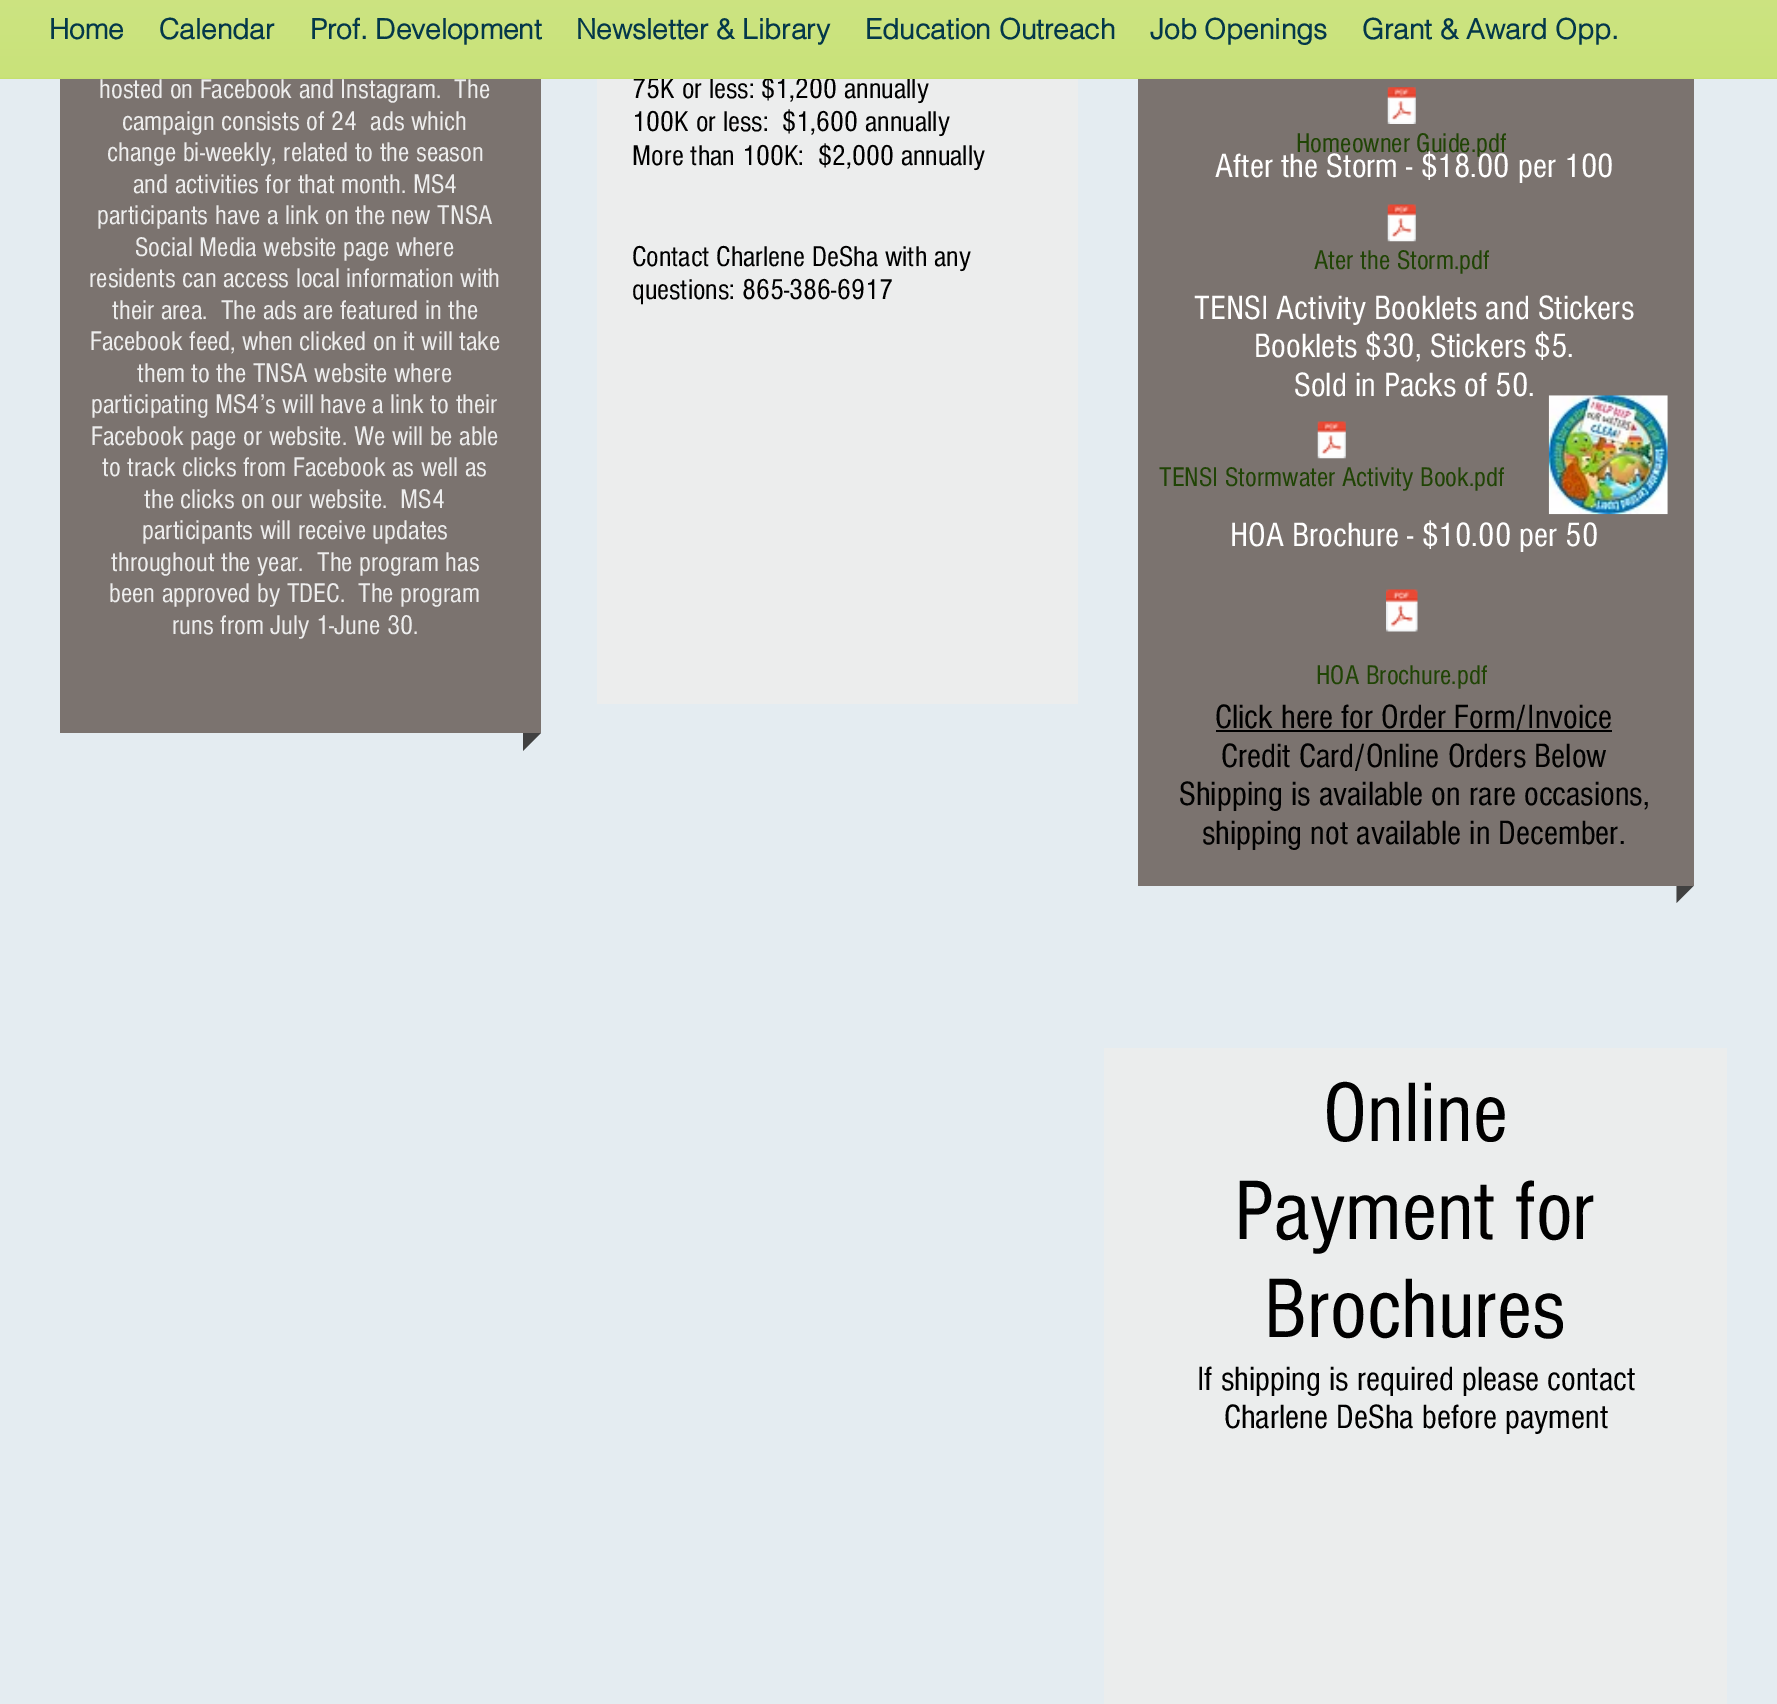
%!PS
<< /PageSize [1777 1704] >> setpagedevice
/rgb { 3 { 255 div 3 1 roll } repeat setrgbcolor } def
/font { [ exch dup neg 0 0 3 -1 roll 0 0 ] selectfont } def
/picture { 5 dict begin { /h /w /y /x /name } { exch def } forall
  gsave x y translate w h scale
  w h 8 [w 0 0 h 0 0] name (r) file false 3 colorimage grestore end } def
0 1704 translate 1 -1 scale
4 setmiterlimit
228 236 241 rgb
0 0 1777 1704 rectfill
123 115 111 rgb
60 79 481 654 rectfill
65 65 65 rgb
523 733 moveto 541 733 lineto 523 751 lineto closepath fill
236 237 237 rgb
597 79 481 625 rectfill
65 65 65 rgb
1676.5 885.5 moveto 1694 885.5 lineto 1676.5 903 lineto closepath fill
123 115 111 rgb
1138 79 556 807 rectfill
(img/2.rgb) 1387 87 29 37 picture
0 0 0 rgb
1216 730 396 2 rectfill
(img/3.rgb) 1387 204 29 38 picture
(img/4.rgb) 1317 421 29 38 picture
(img/5.rgb) 1548 395 120 120 picture
(img/6.rgb) 1386 589 32 43 picture
235 237 237 rgb
1104 1048 623 656 rectfill
/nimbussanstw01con-Regular 28 font
237 237 237 rgb
[
  [(hosted on Facebook and Instagram.  The) 99 98]
  [(campaign consists of 24  ads which) 122 130]
  [(change bi-weekly, related to the season) 107 161]
  [(and activities for that month. MS4) 133 193]
  [(participants have a link on the new TNSA) 97 224]
  [(Social Media website page where) 135 256]
  [(residents can access local information with) 89 287]
  [(their area.  The ads are featured in the) 112 319]
  [(Facebook feed, when clicked on it will take) 90 350]
  [(them to the TNSA website where) 137 382]
  [(participating MS4’s will have a link to their) 91 413]
  [(Facebook page or website. We will be able) 91 445]
  [(to track clicks from Facebook as well as) 102 476]
  [(the clicks on our website.  MS4) 144 508]
  [(participants will receive updates) 142 539]
  [(throughout the year.  The program has) 111 571]
  [(been approved by TDEC.  The program) 109 602]
  [(runs from July 1-June 30.) 172 634]
] { aload pop moveto show } forall
/nimbussanstw01con-Regular 29.75 font
0 0 0 rgb
632 98 moveto (75K or less: $1,200 annually) show
186 218 85 rgb
0 0 1777 79 rectfill
(img/1.rgb) 0 0 1777 79 picture
/helvetica-Bold 28 font
4 56 74 rgb
[
  [(Grant & Award Opp.) 1362 39]
  [(Job Openings) 1150 39]
  [(Education Outreach) 865 39]
  [(Newsletter & Library) 576 39]
  [(Prof. Development) 310 39]
  [(Calendar) 159 39]
  [(Home) 49 39]
] { aload pop moveto show } forall
/nimbussanstw01con-Regular 29.75 font
0 0 0 rgb
[
  [(100K or less:  $1,600 annually) 632 131]
  [(More than 100K:  $2,000 annually) 632 165]
  [(Contact Charlene DeSha with any) 632 266]
  [(questions: 865-386-6917) 632 299]
] { aload pop moveto show } forall
/nimbussanstw01con-Regular 28 font
32 68 5 rgb
1296 152 moveto (Homeowner Guide.pdf) show
/nimbussanstw01con-Regular 35 font
255 255 255 rgb
[
  [(After the Storm - $18.00 per 100) 1215 177]
  [(TENSI Activity Booklets and Stickers) 1194 319]
  [(Booklets $30, Stickers $5.) 1254 357]
  [(Sold in Packs of 50.) 1294 396]
  [(HOA Brochure - $10.00 per 50) 1230 546]
] { aload pop moveto show } forall
0 0 0 rgb
[
  [(Click here for Order Form/Invoice) 1215 728]
  [(Credit Card/Online Orders Below) 1221 767]
  [(Shipping is available on rare occasions,) 1179 805]
  [(shipping not available in December.) 1202 844]
] { aload pop moveto show } forall
/nimbussanstw01con-Regular 28 font
32 68 5 rgb
[
  [(Ater the Storm.pdf) 1314 269]
  [(TENSI Stormwater Activity Book.pdf) 1159 486]
  [(HOA Brochure.pdf) 1316 684]
] { aload pop moveto show } forall
/nimbussanstw01con-Regular 87.5 font
0 0 0 rgb
[
  [(Online) 1323 1141]
  [(Payment for) 1234 1239]
  [(Brochures) 1264 1337]
] { aload pop moveto show } forall
/nimbussanstw01con-Regular 35 font
1197 1390 moveto (If shipping is required please contact) show
1224 1428 moveto (Charlene DeSha before payment) show
showpage
